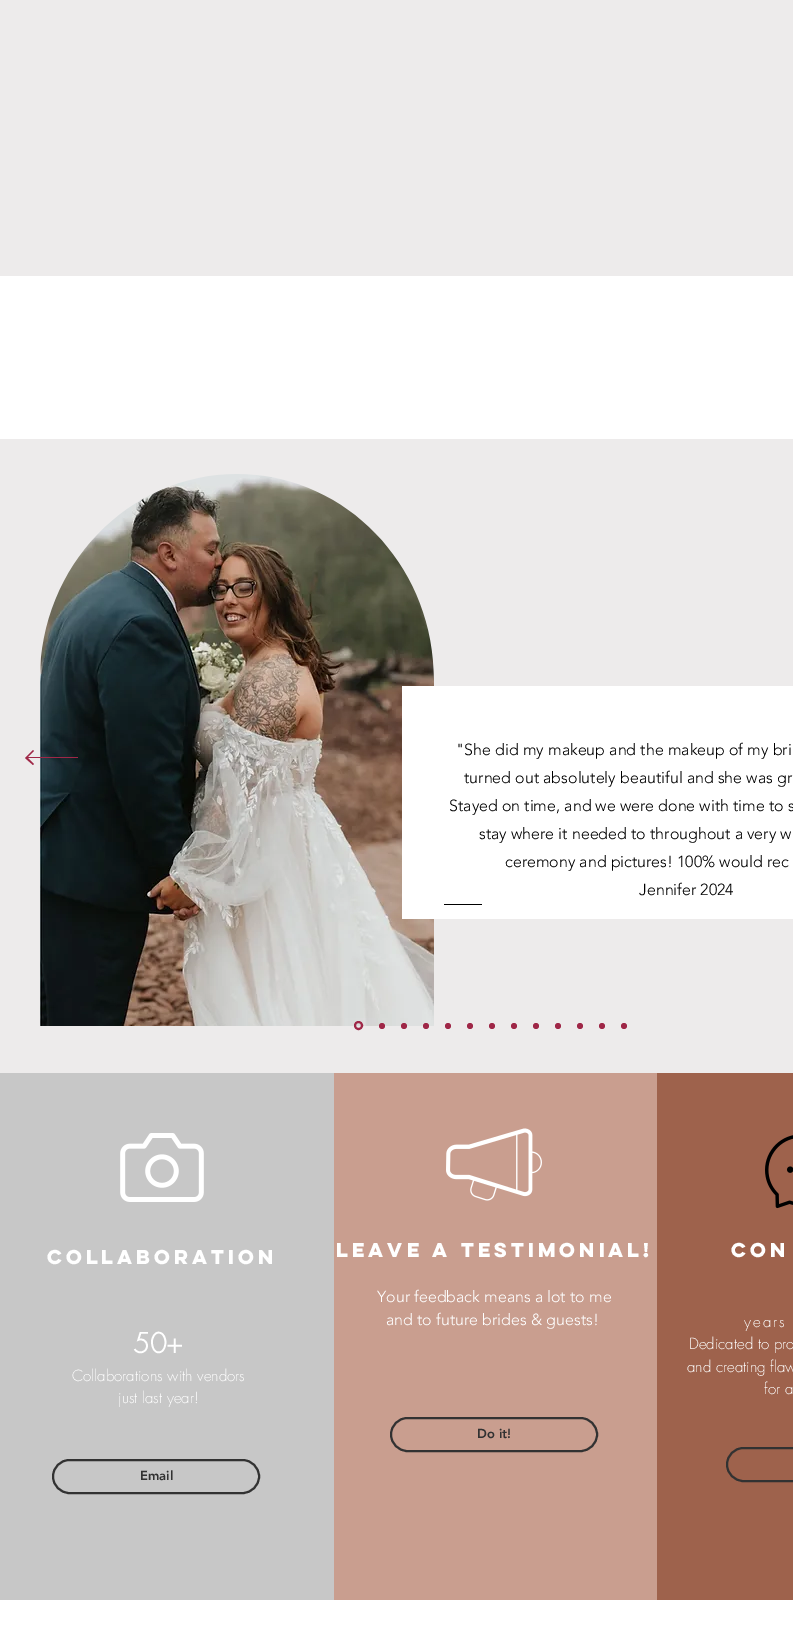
%!PS
<< /PageSize [793 1629] >> setpagedevice
/rgb { 3 { 255 div 3 1 roll } repeat setrgbcolor } def
/font { [ exch dup neg 0 0 3 -1 roll 0 0 ] selectfont } def
/circle { newpath 0 360 arc closepath } def
/roundrect { 5 dict begin { /r /h /w /y /x } { exch def } forall
  x r add y moveto x w add y 2 copy h add r arct x w add y h add x 1 index r arct
  x y h add x y r arct x y 2 copy exch w add exch r arct closepath end } def
/picture { 5 dict begin { /h /w /y /x /name } { exch def } forall
  gsave x y translate w h scale
  w h 8 [w 0 0 h 0 0] name (r) file false 3 colorimage grestore end } def
0 1629 translate 1 -1 scale
4 setmiterlimit
255 255 255 rgb
0 0 793 1629 rectfill
237 235 235 rgb
0 0 793 276 rectfill
0 439 793 634 rectfill
(img/1.rgb) 40 474 394 552 picture
159 39 71 rgb
33 750 moveto 34 751 lineto 28 757 lineto 78 757 lineto 78 758 lineto 28 758 lineto 34 764 lineto 33 765 lineto 25 758 lineto closepath fill
255 255 255 rgb
402 686 391 233 rectfill
0 0 0 rgb
444 904 38 1 rectfill
159 39 71 rgb
2 setlinewidth
358.5 1025.5 3.5 circle stroke
382 1026 3 circle fill
404 1026 3 circle fill
426 1026 3 circle fill
448 1026 3 circle fill
470 1026 3 circle fill
492 1026 3 circle fill
514 1026 3 circle fill
536 1026 3 circle fill
558 1026 3 circle fill
580 1026 3 circle fill
602 1026 3 circle fill
624 1026 3 circle fill
199 199 199 rgb
0 1073 334 527 rectfill
(img/2.rgb) 120 1133 84 69 picture
50 50 50 rgb
53 1460 206 33 16.5 roundrect stroke
201 158 143 rgb
334 1073 323 527 rectfill
(img/3.rgb) 446 1128 96 73 picture
50 50 50 rgb
391 1418 206 33 16.5 roundrect stroke
158 98 76 rgb
657 1073 136 527 rectfill
(img/4.rgb) 765 1135 28 74 picture
50 50 50 rgb
727 1448 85 33 16.5 roundrect stroke
/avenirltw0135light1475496-Light 16 font
0 0 0 rgb
[
  [("She did my makeup and the makeup of my bri) 456 755]
  [(turned out absolutely beautiful and she was gr) 464 783]
  [(Stayed on time, and we were done with time to s) 449 811]
  [(stay where it needed to throughout a very w) 479 839]
  [(ceremony and pictures! 100% would rec) 505 867]
  [(Jennifer 2024) 639 895]
] { aload pop moveto show } forall
/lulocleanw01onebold-Bold 18 font
255 255 255 rgb
47 1264 moveto (Collaboration) show
/futura-Bold 27 font
133 1353 moveto (50+) show
/futura-Light 15 font
72 1381 moveto (Collaborations with vendors) show
118 1403 moveto (just last year!) show
/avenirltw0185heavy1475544-Black 13 font
50 50 50 rgb
140 1480 moveto (Email) show
/lulocleanw01onebold-Bold 18 font
255 255 255 rgb
336 1257 moveto (Leave a testimonial!) show
/avenirltw0135light1475496-Light 16 font
377 1302 moveto (Your feedback means a lot to me) show
386 1325 moveto (and to future brides & guests!) show
/avenirltw0185heavy1475544-Black 13 font
50 50 50 rgb
477 1438 moveto (Do it!) show
/lulocleanw01onebold-Bold 18 font
255 255 255 rgb
731 1257 moveto (Con) show
/futura-Light 15 font
744 1327 moveto 2 0 (years) ashow
[
  [(Dedicated to pro) 689 1349]
  [(and creating flaw) 687 1372]
  [(for a) 764 1394]
] { aload pop moveto show } forall
showpage
